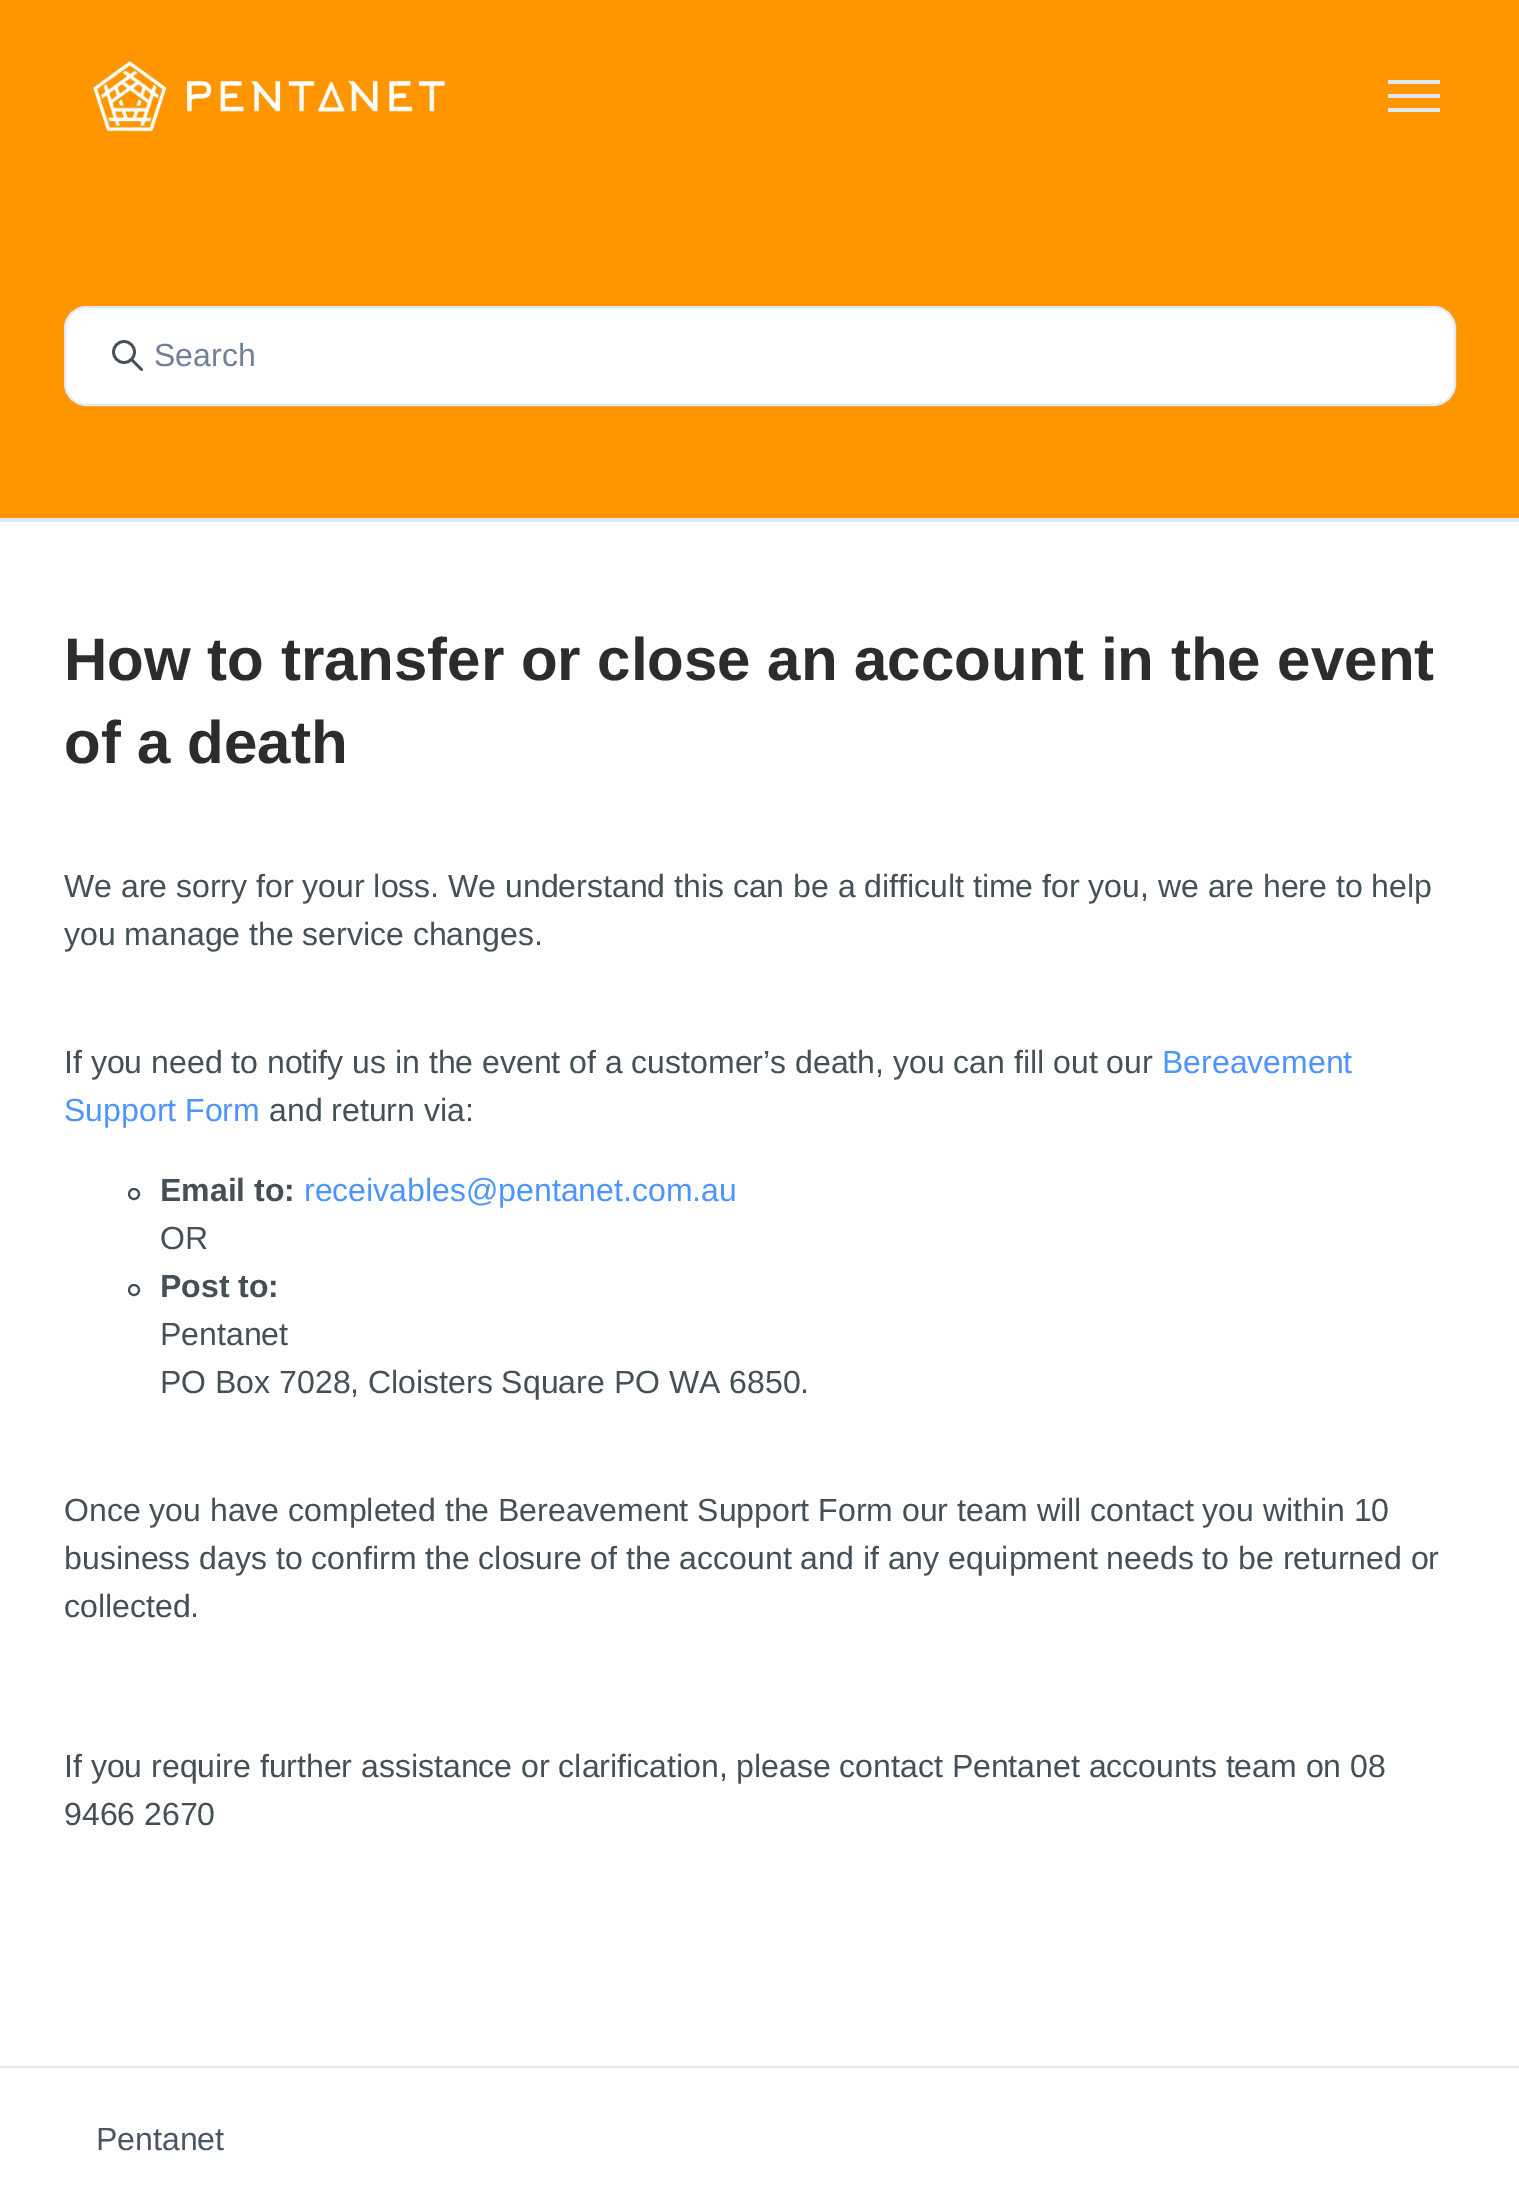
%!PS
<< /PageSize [1519 2212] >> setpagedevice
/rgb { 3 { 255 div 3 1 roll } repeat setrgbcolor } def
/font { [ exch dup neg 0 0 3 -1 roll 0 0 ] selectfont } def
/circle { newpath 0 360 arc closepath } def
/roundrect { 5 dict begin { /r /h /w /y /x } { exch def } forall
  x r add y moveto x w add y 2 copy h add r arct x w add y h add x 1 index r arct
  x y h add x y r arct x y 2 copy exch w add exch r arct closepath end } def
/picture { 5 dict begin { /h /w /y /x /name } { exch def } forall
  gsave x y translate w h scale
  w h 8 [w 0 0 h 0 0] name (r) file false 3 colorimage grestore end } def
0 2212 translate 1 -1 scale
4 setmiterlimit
255 255 255 rgb
0 0 1519 2212 rectfill
255 150 0 rgb
0 0 1519 518 rectfill
(img/1.rgb) 93 61 352 71 picture
[
  [1388 94 52 4 226 232 240]
  [1388 80 52 4 226 232 240]
  [1388 108 52 4 226 232 240]
] { aload pop rgb rectfill } forall
255 255 255 rgb
65 307 1390 98 21 roundrect gsave fill grestore
226 232 240 rgb
2 setlinewidth
stroke
69 80 86 rgb
2.7 setlinewidth
124 352 10.5 circle stroke
1 setlinecap
141.5 369.5 moveto 132 360 lineto stroke
226 232 240 rgb
0 518 1519 4 rectfill
69 80 86 rgb
2 setlinewidth
0 setlinecap
134 1194 5 circle stroke
134 1290 5 circle stroke
226 232 240 rgb
0 2066 1519 2 rectfill
/LiberationSans-Regular 32 font
113 128 150 rgb
154 366 moveto (Search) show
/LiberationSans-Bold 60 font
43 44 45 rgb
64 680 moveto (How to transfer or close an account in the event) show
64 763 moveto (of a death) show
/LiberationSans-Regular 32 font
69 80 86 rgb
[
  [(We are sorry for your loss. We understand this can be a difficult time for you, we are here to help) 64 897]
  [(you manage the service changes.) 64 945]
  [(If you need to notify us in the event of a customer’s death, you can fill out our) 64 1073]
] { aload pop moveto show } forall
77 148 255 rgb
1162 1073 moveto (Bereavement) show
64 1121 moveto (Support Form) show
69 80 86 rgb
269 1121 moveto (and return via:) show
/LiberationSans-Bold 32 font
160 1201 moveto (Email to:) show
/LiberationSans-Regular 32 font
77 148 255 rgb
304 1201 moveto (receivables@pentanet.com.au) show
69 80 86 rgb
160 1249 moveto (OR) show
/LiberationSans-Bold 32 font
160 1297 moveto (Post to:) show
/LiberationSans-Regular 32 font
[
  [(Pentanet) 160 1345]
  [(PO Box 7028, Cloisters Square PO WA 6850.) 160 1393]
  [(Once you have completed the Bereavement Support Form our team will contact you within 10) 64 1521]
  [(business days to confirm the closure of the account and if any equipment needs to be returned or) 64 1569]
  [(collected.) 64 1617]
  [(If you require further assistance or clarification, please contact Pentanet accounts team on 08) 64 1777]
  [(9466 2670) 64 1825]
] { aload pop moveto show } forall
74 85 104 rgb
96 2150 moveto (Pentanet) show
showpage
